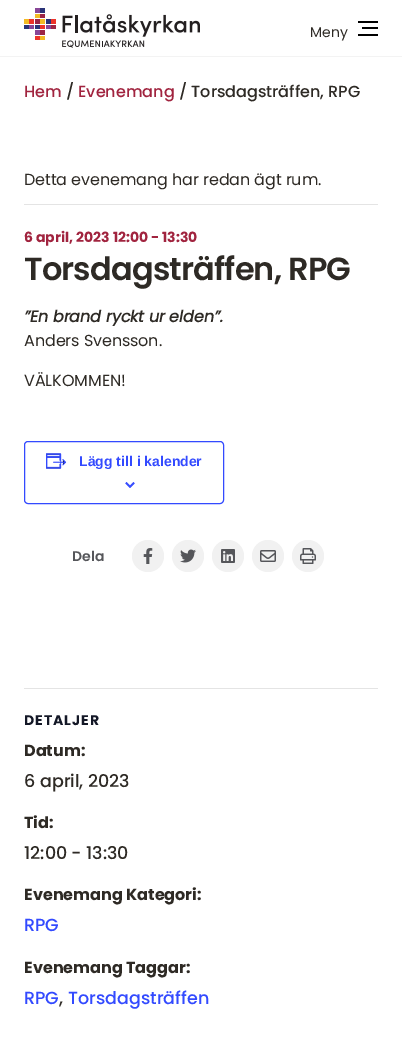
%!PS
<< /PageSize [402 1063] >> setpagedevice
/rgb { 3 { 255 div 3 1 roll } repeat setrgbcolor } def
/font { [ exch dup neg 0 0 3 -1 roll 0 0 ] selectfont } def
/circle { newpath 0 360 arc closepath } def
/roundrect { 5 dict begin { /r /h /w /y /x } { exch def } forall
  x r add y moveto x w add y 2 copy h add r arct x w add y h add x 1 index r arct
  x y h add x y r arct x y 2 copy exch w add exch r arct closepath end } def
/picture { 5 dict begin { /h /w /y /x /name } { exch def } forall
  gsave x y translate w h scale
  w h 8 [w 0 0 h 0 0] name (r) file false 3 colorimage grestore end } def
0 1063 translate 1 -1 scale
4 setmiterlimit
255 255 255 rgb
0 0 402 1063 rectfill
243 243 243 rgb
0 56 402 1 rectfill
(img/1.rgb) 24 8 176 40 picture
[
  [358 21 20 2 0 0 0]
  [362 27 16 2 0 0 0]
  [358 34 20 2 0 0 0]
  [24 204 354 1 228 228 228]
] { aload pop rgb rectfill } forall
51 74 255 rgb
24.5 441.5 199 62 3.5 roundrect stroke
(img/2.rgb) 46 453 21 16 picture
(img/3.rgb) 125 482 10 6 picture
241 241 241 rgb
148 556 16 circle fill
(img/4.rgb) 143 548 10 16 picture
188 556 16 circle fill
(img/5.rgb) 180 549 16 14 picture
228 556 16 circle fill
(img/6.rgb) 221 549 14 14 picture
268 556 16 circle fill
(img/7.rgb) 260 550 16 12 picture
308 556 16 circle fill
(img/8.rgb) 300 548 16 16 picture
228 228 228 rgb
24 688 354 1 rectfill
/Poppins-Regular 14 font
46 42 37 rgb
310 37 moveto (Meny) show
/Poppins-Medium 16 font
161 36 63 rgb
24 97 moveto (Hem) show
46 42 37 rgb
66 97 moveto (/) show
161 36 63 rgb
78 97 moveto (Evenemang) show
46 42 37 rgb
179 97 moveto (/ Torsdagsträffen, RPG) show
/Poppins-Regular 16 font
24 185 moveto -0.1 0 (Detta evenemang har redan ägt rum.) ashow
/Poppins-Bold 14 font
161 36 63 rgb
24 242 moveto (6 april, 2023 12:00 - 13:30) show
/Poppins-SemiBold 32 font
46 42 37 rgb
24 280 moveto -0.8 0 (Torsdagsträffen, RPG) ashow
/Poppins-BoldItalic 16 font
24 322 moveto -0.1 0 (”En brand ryckt ur elden”.) ashow
/Poppins-Regular 16 font
24 346 moveto -0.1 0 (Anders Svensson.) ashow
24 386 moveto -0.1 0 (VÄLKOMMEN!) ashow
/LiberationSans-Bold 14 font
51 74 255 rgb
79 466 moveto (Lägg till i kalender) show
/Poppins-SemiBold 14 font
85 86 90 rgb
72 561 moveto (Dela) show
/Poppins-Bold 14 font
20 24 39 rgb
24 725 moveto 1 0 (DETALJER) ashow
/Poppins-Bold 16 font
46 42 37 rgb
24 756 moveto (Datum:) show
/Poppins-Medium 17.5 font
24 787 moveto (6 april, 2023) show
/Poppins-Bold 16 font
24 828 moveto (Tid:) show
/Poppins-Medium 17.5 font
24 859 moveto (12:00 - 13:30) show
/Poppins-Bold 16 font
24 900 moveto (Evenemang Kategori:) show
/Poppins-Medium 17.5 font
51 74 255 rgb
24 931 moveto (RPG) show
/Poppins-Bold 16 font
46 42 37 rgb
24 973 moveto (Evenemang Taggar:) show
/Poppins-Medium 17.5 font
51 74 255 rgb
24 1004 moveto (RPG) show
46 42 37 rgb
59 1004 moveto (,) show
51 74 255 rgb
68 1004 moveto (Torsdagsträffen) show
showpage
